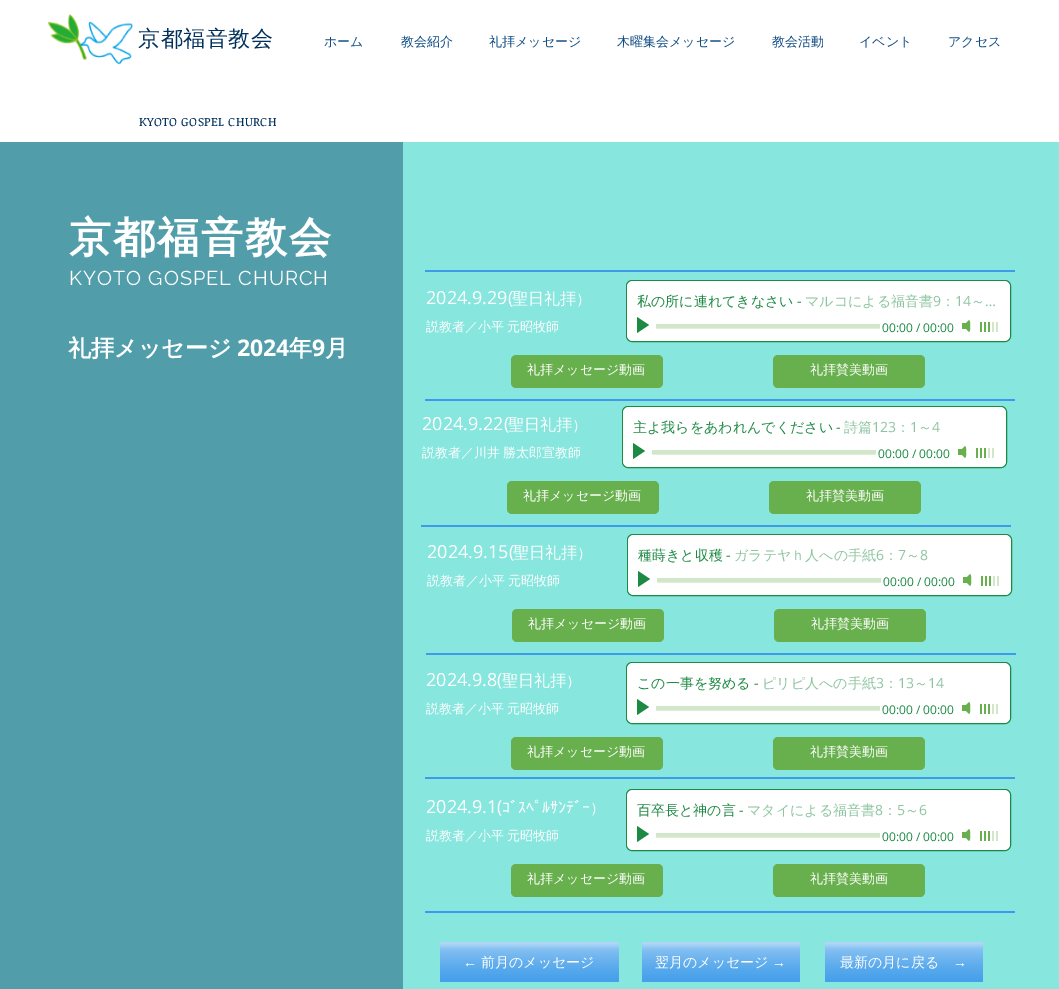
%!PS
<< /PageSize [1059 989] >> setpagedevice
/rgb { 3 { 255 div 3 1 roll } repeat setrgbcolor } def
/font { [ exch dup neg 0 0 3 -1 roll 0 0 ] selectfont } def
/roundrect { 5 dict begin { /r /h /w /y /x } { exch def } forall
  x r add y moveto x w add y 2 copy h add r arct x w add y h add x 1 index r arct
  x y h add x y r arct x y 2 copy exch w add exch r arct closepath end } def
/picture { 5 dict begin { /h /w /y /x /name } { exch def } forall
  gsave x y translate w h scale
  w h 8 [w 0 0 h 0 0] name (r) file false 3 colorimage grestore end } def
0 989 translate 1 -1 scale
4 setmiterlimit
135 230 222 rgb
0 0 1059 989 rectfill
255 255 255 rgb
0 0 1059 142 rectfill
(img/1.rgb) 47 14 86 51 picture
81 158 170 rgb
0 142 403 847 rectfill
61 155 233 rgb
425 270 590 2 rectfill
28 138 67 rgb
626.5 280.5 384 61 5.5 roundrect stroke
255 255 255 rgb
627 281 383 60 6 roundrect fill
28 138 67 rgb
637 333 moveto 637 317 lineto 649 325 lineto closepath fill
210 231 202 rgb
656 324 224 4 rectfill
224 238 218 rgb
656 328 224 1 rectfill
104 176 77 rgb
969 320 moveto 963 326 lineto 969 332 lineto 970.5 330.5 970 328 970 326 curveto 970 324 970.5 321.5 969 320 curveto closepath fill
[
  [962 323 4 6 104 176 77]
  [980 322 2 10 104 176 77]
  [984 322 2 10 104 176 77]
  [988 322 2 10 104 176 77]
  [992 322 2 10 210 231 202]
  [996 322 2 10 210 231 202]
] { aload pop rgb rectfill } forall
104 176 77 rgb
511 355 152 33 5 roundrect fill
773 355 152 33 5 roundrect fill
61 155 233 rgb
425 399 590 2 rectfill
28 138 67 rgb
622.5 406.5 384 61 5.5 roundrect stroke
255 255 255 rgb
623 407 383 60 6 roundrect fill
28 138 67 rgb
633 459 moveto 633 443 lineto 645 451 lineto closepath fill
210 231 202 rgb
652 450 224 4 rectfill
224 238 218 rgb
652 454 224 1 rectfill
104 176 77 rgb
965 446 moveto 959 452 lineto 965 458 lineto 966.5 456.5 966 454 966 452 curveto 966 450 966.5 447.5 965 446 curveto closepath fill
[
  [958 449 4 6 104 176 77]
  [976 448 2 10 104 176 77]
  [980 448 2 10 104 176 77]
  [984 448 2 10 104 176 77]
  [988 448 2 10 210 231 202]
  [992 448 2 10 210 231 202]
] { aload pop rgb rectfill } forall
104 176 77 rgb
507 481 152 33 5 roundrect fill
769 481 152 33 5 roundrect fill
61 155 233 rgb
421 525 590 2 rectfill
28 138 67 rgb
627.5 534.5 384 61 5.5 roundrect stroke
255 255 255 rgb
628 535 383 60 6 roundrect fill
28 138 67 rgb
638 587 moveto 638 571 lineto 650 579 lineto closepath fill
210 231 202 rgb
657 578 224 4 rectfill
224 238 218 rgb
657 582 224 1 rectfill
104 176 77 rgb
970 574 moveto 964 580 lineto 970 586 lineto 971.5 584.5 971 582 971 580 curveto 971 578 971.5 575.5 970 574 curveto closepath fill
[
  [963 577 4 6 104 176 77]
  [981 576 2 10 104 176 77]
  [985 576 2 10 104 176 77]
  [989 576 2 10 104 176 77]
  [993 576 2 10 210 231 202]
  [997 576 2 10 210 231 202]
] { aload pop rgb rectfill } forall
104 176 77 rgb
512 609 152 33 5 roundrect fill
774 609 152 33 5 roundrect fill
61 155 233 rgb
426 653 590 2 rectfill
28 138 67 rgb
626.5 662.5 384 61 5.5 roundrect stroke
255 255 255 rgb
627 663 383 60 6 roundrect fill
28 138 67 rgb
637 715 moveto 637 699 lineto 649 707 lineto closepath fill
210 231 202 rgb
656 706 224 4 rectfill
224 238 218 rgb
656 710 224 1 rectfill
104 176 77 rgb
969 702 moveto 963 708 lineto 969 714 lineto 970.5 712.5 970 710 970 708 curveto 970 706 970.5 703.5 969 702 curveto closepath fill
[
  [962 705 4 6 104 176 77]
  [980 704 2 10 104 176 77]
  [984 704 2 10 104 176 77]
  [988 704 2 10 104 176 77]
  [992 704 2 10 210 231 202]
  [996 704 2 10 210 231 202]
] { aload pop rgb rectfill } forall
104 176 77 rgb
511 737 152 33 5 roundrect fill
773 737 152 33 5 roundrect fill
61 155 233 rgb
425 777 590 2 rectfill
28 138 67 rgb
626.5 789.5 384 61 5.5 roundrect stroke
255 255 255 rgb
627 790 383 60 6 roundrect fill
28 138 67 rgb
637 842 moveto 637 826 lineto 649 834 lineto closepath fill
210 231 202 rgb
656 833 224 4 rectfill
224 238 218 rgb
656 837 224 1 rectfill
104 176 77 rgb
969 829 moveto 963 835 lineto 969 841 lineto 970.5 839.5 970 837 970 835 curveto 970 833 970.5 830.5 969 829 curveto closepath fill
[
  [962 832 4 6 104 176 77]
  [980 831 2 10 104 176 77]
  [984 831 2 10 104 176 77]
  [988 831 2 10 104 176 77]
  [992 831 2 10 210 231 202]
  [996 831 2 10 210 231 202]
] { aload pop rgb rectfill } forall
104 176 77 rgb
511 864 152 33 5 roundrect fill
773 864 152 33 5 roundrect fill
61 155 233 rgb
425 911 590 2 rectfill
440 942 179 40 rectfill
(img/2.rgb) 440 942 179 40 picture
642 942 158 40 rectfill
(img/3.rgb) 642 942 158 40 picture
825 942 158 40 rectfill
(img/3.rgb) 825 942 158 40 picture
/WenQuanYiZenHei-Medium 22 font
0 48 91 rgb
138 46 moveto 0.5 0 (京都福音教会) ashow
/WenQuanYiZenHei-Medium 13 font
15 76 133 rgb
[
  [(ホーム) 324 46]
  [(教会紹介) 401 46]
  [(礼拝メッセージ) 489 46]
  [(木曜集会メッセージ) 617 46]
  [(教会活動) 772 46]
  [(イベント) 859 46]
  [(アクセス) 948 46]
] { aload pop moveto show } forall
/NoticiaText-Regular 12 font
0 48 91 rgb
139 126 moveto 0.4 0 (KYOTO GOSPEL CHURCH) ashow
/WenQuanYiZenHei-Bold 42 font
255 255 255 rgb
69 252 moveto 2 0 (京都福音教会) ashow
/Raleway-Regular 20 font
69 285 moveto 1 0 (KYOTO GOSPEL CHURCH) ashow
/WenQuanYiZenHei-Bold 23 font
68 356 moveto (礼拝メッセージ) show
/OpenSans-Bold 23 font
237 356 moveto (2024) show
/WenQuanYiZenHei-Bold 23 font
289 356 moveto (年) show
/OpenSans-Bold 23 font
312 356 moveto (9) show
/WenQuanYiZenHei-Bold 23 font
325 356 moveto (月) show
/OpenSans-Regular 18 font
426 304 moveto (2024.9.29\() show
/WenQuanYiZenHei-Medium 16 font
512 304 moveto (聖日礼拝) show
/WenQuanYiZenHei-Medium 15 font
576 304 moveto (）) show
/WenQuanYiZenHei-Medium 13 font
426 331 moveto -1 0 32 (説教者／小平 元昭牧師) widthshow
/WenQuanYiZenHei-Medium 14 font
28 138 67 rgb
637 306 moveto (私の所に連れてきなさい) show
/OpenSans-Regular 14 font
797 306 moveto (-) show
/WenQuanYiZenHei-Medium 14 font
142 197 161 rgb
805 306 moveto (マルコによる福音書) show
/OpenSans-Regular 14 font
933 306 moveto (9) show
/WenQuanYiZenHei-Medium 14 font
941 306 moveto (：) show
/OpenSans-Regular 14 font
955 306 moveto (14) show
/WenQuanYiZenHei-Medium 14 font
971 306 moveto (～) show
/OpenSans-Regular 14 font
985 306 moveto (…) show
/OpenSans-Regular 12 font
28 138 67 rgb
882 332 moveto (00:00 / 00:00) show
/WenQuanYiZenHei-Medium 13 font
255 255 255 rgb
527 374 moveto (礼拝メッセージ動画) show
810 374 moveto (礼拝賛美動画) show
/OpenSans-Regular 18 font
422 430 moveto (2024.9.22\() show
/WenQuanYiZenHei-Medium 16 font
508 430 moveto (聖日礼拝) show
/WenQuanYiZenHei-Medium 15 font
572 430 moveto (）) show
/WenQuanYiZenHei-Medium 13 font
422 457 moveto -1 0 32 (説教者／川井 勝太郎宣教師) widthshow
/WenQuanYiZenHei-Medium 14 font
28 138 67 rgb
633 432 moveto (主よ我らをあわれんでください) show
/OpenSans-Regular 14 font
836 432 moveto (-) show
/WenQuanYiZenHei-Medium 14 font
142 197 161 rgb
844 432 moveto (詩篇) show
/OpenSans-Regular 14 font
872 432 moveto (123) show
/WenQuanYiZenHei-Medium 14 font
896 432 moveto (：) show
/OpenSans-Regular 14 font
910 432 moveto (1) show
/WenQuanYiZenHei-Medium 14 font
918 432 moveto (～) show
/OpenSans-Regular 14 font
932 432 moveto (4) show
/OpenSans-Regular 12 font
28 138 67 rgb
878 458 moveto (00:00 / 00:00) show
/WenQuanYiZenHei-Medium 13 font
255 255 255 rgb
523 500 moveto (礼拝メッセージ動画) show
806 500 moveto (礼拝賛美動画) show
/OpenSans-Regular 18 font
427 558 moveto (2024.9.15\() show
/WenQuanYiZenHei-Medium 16 font
513 558 moveto (聖日礼拝) show
/WenQuanYiZenHei-Medium 15 font
577 558 moveto (）) show
/WenQuanYiZenHei-Medium 13 font
427 585 moveto -1 0 32 (説教者／小平 元昭) widthshow
534 585 moveto (牧師) show
/WenQuanYiZenHei-Medium 14 font
28 138 67 rgb
638 560 moveto (種蒔きと収穫) show
/OpenSans-Regular 14 font
726 560 moveto (-) show
/WenQuanYiZenHei-Medium 14 font
142 197 161 rgb
734 560 moveto (ガラテヤｈ人への手紙) show
/OpenSans-Regular 14 font
876 560 moveto (6) show
/WenQuanYiZenHei-Medium 14 font
884 560 moveto (：) show
/OpenSans-Regular 14 font
898 560 moveto (7) show
/WenQuanYiZenHei-Medium 14 font
906 560 moveto (～) show
/OpenSans-Regular 14 font
920 560 moveto (8) show
/OpenSans-Regular 12 font
28 138 67 rgb
883 586 moveto (00:00 / 00:00) show
/WenQuanYiZenHei-Medium 13 font
255 255 255 rgb
528 628 moveto (礼拝メッセージ動画) show
811 628 moveto (礼拝賛美動画) show
/OpenSans-Regular 18 font
426 686 moveto (2024.9.8\() show
/WenQuanYiZenHei-Medium 16 font
502 686 moveto (聖日礼拝) show
/WenQuanYiZenHei-Medium 15 font
566 686 moveto (）) show
/WenQuanYiZenHei-Medium 13 font
426 713 moveto -1 0 32 (説教者／小平 元昭) widthshow
533 713 moveto (牧師) show
/WenQuanYiZenHei-Medium 14 font
28 138 67 rgb
637 688 moveto (この一事を努める) show
/OpenSans-Regular 14 font
754 688 moveto (-) show
/WenQuanYiZenHei-Medium 14 font
142 197 161 rgb
762 688 moveto (ピリピ人への手紙) show
/OpenSans-Regular 14 font
876 688 moveto (3) show
/WenQuanYiZenHei-Medium 14 font
884 688 moveto (：) show
/OpenSans-Regular 14 font
898 688 moveto (13) show
/WenQuanYiZenHei-Medium 14 font
914 688 moveto (～) show
/OpenSans-Regular 14 font
928 688 moveto (14) show
/OpenSans-Regular 12 font
28 138 67 rgb
882 714 moveto (00:00 / 00:00) show
/WenQuanYiZenHei-Medium 13 font
255 255 255 rgb
527 756 moveto (礼拝メッセージ動画) show
810 756 moveto (礼拝賛美動画) show
/OpenSans-Regular 18 font
426 813 moveto (2024.9.1\() show
/IPAPGothic-Regular 16 font
502 813 moveto (ｺﾞｽﾍﾟﾙｻﾝﾃﾞｰ) show
/WenQuanYiZenHei-Medium 15 font
590 813 moveto (）) show
/WenQuanYiZenHei-Medium 13 font
426 840 moveto -1 0 32 (説教者／小平 元昭) widthshow
533 840 moveto (牧師) show
/WenQuanYiZenHei-Medium 14 font
28 138 67 rgb
637 815 moveto (百卒長と神の言) show
/OpenSans-Regular 14 font
739 815 moveto (-) show
/WenQuanYiZenHei-Medium 14 font
142 197 161 rgb
747 815 moveto (マタイによる福音書) show
/OpenSans-Regular 14 font
875 815 moveto (8) show
/WenQuanYiZenHei-Medium 14 font
883 815 moveto (：) show
/OpenSans-Regular 14 font
897 815 moveto (5) show
/WenQuanYiZenHei-Medium 14 font
905 815 moveto (～) show
/OpenSans-Regular 14 font
919 815 moveto (6) show
/OpenSans-Regular 12 font
28 138 67 rgb
882 841 moveto (00:00 / 00:00) show
/WenQuanYiZenHei-Medium 13 font
255 255 255 rgb
527 883 moveto (礼拝メッセージ動画) show
810 883 moveto (礼拝賛美動画) show
/LiberationSans-Regular 14 font
463 967 moveto (←) show
/WenQuanYiZenHei-Medium 14 font
481 967 moveto (前月のメッセージ) show
655 967 moveto (翌月のメッセージ) show
/LiberationSans-Regular 14 font
772 967 moveto (→) show
/WenQuanYiZenHei-Medium 14 font
840 967 moveto (最新の月に戻る) show
/LiberationSans-Regular 14 font
953 967 moveto (→) show
showpage
